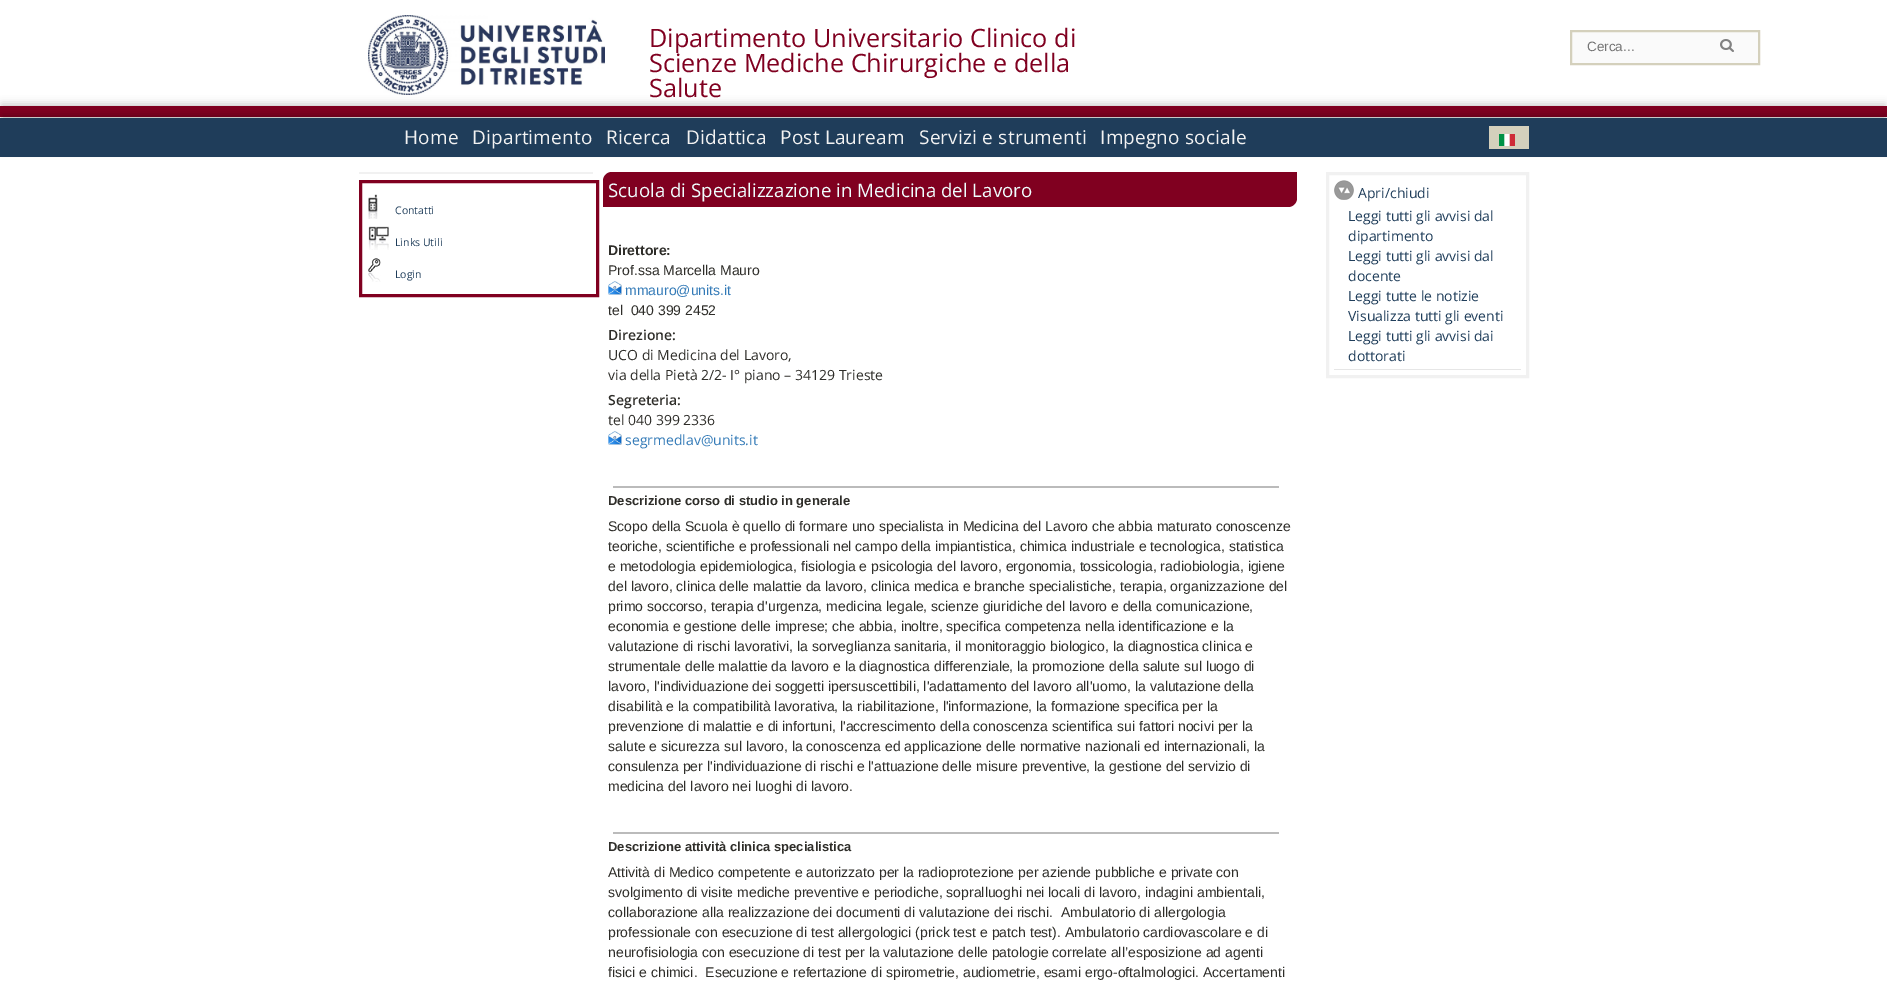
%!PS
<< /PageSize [1887 983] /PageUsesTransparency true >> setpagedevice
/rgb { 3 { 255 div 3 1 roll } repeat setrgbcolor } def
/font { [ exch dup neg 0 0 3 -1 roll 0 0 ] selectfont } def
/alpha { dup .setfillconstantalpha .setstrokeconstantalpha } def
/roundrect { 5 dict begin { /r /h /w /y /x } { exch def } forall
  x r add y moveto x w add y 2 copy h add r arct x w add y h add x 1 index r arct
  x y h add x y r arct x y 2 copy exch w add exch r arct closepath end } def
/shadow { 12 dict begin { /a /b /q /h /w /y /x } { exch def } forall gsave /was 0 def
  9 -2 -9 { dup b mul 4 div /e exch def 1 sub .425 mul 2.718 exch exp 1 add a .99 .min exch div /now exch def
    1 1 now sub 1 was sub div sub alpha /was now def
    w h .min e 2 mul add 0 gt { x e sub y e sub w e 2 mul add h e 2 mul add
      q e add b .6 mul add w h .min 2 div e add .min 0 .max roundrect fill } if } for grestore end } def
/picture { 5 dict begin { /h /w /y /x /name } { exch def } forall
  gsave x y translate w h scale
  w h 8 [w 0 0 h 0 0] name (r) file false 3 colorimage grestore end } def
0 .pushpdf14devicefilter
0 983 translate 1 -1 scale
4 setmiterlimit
255 255 255 rgb
0 0 1887 983 rectfill
0 0 0 rgb
2 104 1883 7 0 4 0.2 shadow
(img/1.rgb) 368 15 237 80 picture
128 0 32 rgb
0 106 1887 11 rectfill
0 0 0 rgb
2 116 1883 35 0 4 0.3 shadow
31 61 90 rgb
0 118 1887 39 rectfill
250 250 250 rgb
1571 31 moveto 1759 31 lineto 1759 64 lineto 1571 64 lineto closepath gsave fill grestore
212 208 188 rgb
2 setlinewidth
stroke
(img/2.rgb) 1720 39 14 13 picture
1489 126 40 23 rectfill
(img/3.rgb) 1499 134 16 12 picture
241 241 241 rgb
359 172 234 2 rectfill
128 0 32 rgb
3 setlinewidth
360.5 181.5 237 114 rectstroke
(img/4.rgb) 368 194 10 25 picture
(img/5.rgb) 368 226 21 24 picture
(img/6.rgb) 368 258 13 24 picture
612 172 moveto 1297 172 lineto 1297 198 lineto 1297 203 1293 207 1288 207 curveto 603 207 lineto 603 181 lineto 603 176 607 172 612 172 curveto closepath fill
(img/7.rgb) 608 281 14 14 picture
(img/7.rgb) 608 431 14 14 picture
187 187 187 rgb
613 486 666 2 rectfill
613 832 666 2 rectfill
241 241 241 rgb
1327.5 173.5 200 203 rectstroke
(img/8.rgb) 1334 180 20 20 picture
230 230 230 rgb
1334 369 187 1 rectfill
/OpenSans-Regular 25.25 font
128 0 32 rgb
[
  [(Dipartimento Universitario Clinico di) 649 47]
  [(Scienze Mediche Chirurgiche e della) 649 72]
  [(Salute) 649 97]
] { aload pop moveto show } forall
/LiberationSans-Regular 13.5 font
117 117 117 rgb
1587 51 moveto (Cerca...) show
/OpenSans-Regular 19 font
242 242 242 rgb
404 144 moveto 0.2 0 (Home) ashow
472 144 moveto 0.2 0 (Dipartimento) ashow
606 144 moveto 0.2 0 (Ricerca) ashow
686 144 moveto 0.2 0 (Didattica) ashow
780 144 moveto 0.2 0 (Post Lauream) ashow
919 144 moveto 0.2 0 (Servizi e strumenti) ashow
1100 144 moveto 0.2 0 (Impegno sociale) ashow
/OpenSans-Regular 10.5 font
31 61 90 rgb
[
  [(Contatti) 395 214]
  [(Links Utili) 395 246]
  [(Login) 395 278]
] { aload pop moveto show } forall
/OpenSans-Regular 18.7 font
240 255 255 rgb
608 197 moveto (Scuola di Specializzazione in Medicina del Lavoro) show
/LiberationSans-Bold 14 font
46 45 41 rgb
608 255 moveto (Direttore:) show
/LiberationSans-Regular 14 font
608 275 moveto (Prof.ssa Marcella Mauro) show
51 122 183 rgb
625 295 moveto (mmauro@units.it) show
46 45 41 rgb
608 315 moveto (tel  040 399 2452) show
/OpenSans-SemiBold 14 font
608 340 moveto (Direzione:) show
/OpenSans-Regular 14 font
608 360 moveto (UCO di Medicina del Lavoro,) show
608 380 moveto (via della Pietà 2/2- I° piano – 34129 Trieste) show
/OpenSans-SemiBold 14 font
608 405 moveto (Segreteria:) show
/OpenSans-Regular 14 font
608 425 moveto (tel 040 399 2336) show
51 122 183 rgb
625 445 moveto (segrmedlav@units.it) show
/LiberationSans-Bold 13 font
46 45 41 rgb
608 505 moveto (Descrizione corso di studio in generale) show
/LiberationSans-Regular 14 font
[
  [(Scopo della Scuola è quello di formare uno specialista in Medicina del Lavoro che abbia maturato conoscenze) 608 531]
  [(teoriche, scientifiche e professionali nel campo della impiantistica, chimica industriale e tecnologica, statistica) 608 551]
  [(e metodologia epidemiologica, fisiologia e psicologia del lavoro, ergonomia, tossicologia, radiobiologia, igiene) 608 571]
  [(del lavoro, clinica delle malattie da lavoro, clinica medica e branche specialistiche, terapia, organizzazione del) 608 591]
  [(primo soccorso, terapia d'urgenza, medicina legale, scienze giuridiche del lavoro e della comunicazione,) 608 611]
  [(economia e gestione delle imprese; che abbia, inoltre, specifica competenza nella identificazione e la) 608 631]
  [(valutazione di rischi lavorativi, la sorveglianza sanitaria, il monitoraggio biologico, la diagnostica clinica e) 608 651]
  [(strumentale delle malattie da lavoro e la diagnostica differenziale, la promozione della salute sul luogo di) 608 671]
  [(lavoro, l'individuazione dei soggetti ipersuscettibili, l'adattamento del lavoro all'uomo, la valutazione della) 608 691]
  [(disabilità e la compatibilità lavorativa, la riabilitazione, l'informazione, la formazione specifica per la) 608 711]
  [(prevenzione di malattie e di infortuni, l'accrescimento della conoscenza scientifica sui fattori nocivi per la) 608 731]
  [(salute e sicurezza sul lavoro, la conoscenza ed applicazione delle normative nazionali ed internazionali, la) 608 751]
  [(consulenza per l'individuazione di rischi e l'attuazione delle misure preventive, la gestione del servizio di) 608 771]
  [(medicina del lavoro nei luoghi di lavoro.) 608 791]
] { aload pop moveto show } forall
/LiberationSans-Bold 13 font
608 851 moveto (Descrizione attività clinica specialistica) show
/LiberationSans-Regular 14 font
[
  [(Attività di Medico competente e autorizzato per la radioprotezione per aziende pubbliche e private con) 608 877]
  [(svolgimento di visite mediche preventive e periodiche, sopralluoghi nei locali di lavoro, indagini ambientali,) 608 897]
  [(collaborazione alla realizzazione dei documenti di valutazione dei rischi.  Ambulatorio di allergologia) 608 917]
  [(professionale con esecuzione di test allergologici \(prick test e patch test\). Ambulatorio cardiovascolare e di) 608 937]
  [(neurofisiologia con esecuzione di test per la valutazione delle patologie correlate all’esposizione ad agenti) 608 957]
  [(fisici e chimici.  Esecuzione e refertazione di spirometrie, audiometrie, esami ergo-oftalmologici. Accertamenti) 608 977]
] { aload pop moveto show } forall
/OpenSans-Regular 14 font
31 61 90 rgb
[
  [(Apri/chiudi) 1358 198]
  [(Leggi tutti gli avvisi dal) 1348 221]
  [(dipartimento) 1348 241]
  [(Leggi tutti gli avvisi dal) 1348 261]
  [(docente) 1348 281]
  [(Leggi tutte le notizie) 1348 301]
  [(Visualizza tutti gli eventi) 1348 321]
  [(Leggi tutti gli avvisi dai) 1348 341]
  [(dottorati) 1348 361]
] { aload pop moveto show } forall
.poppdf14devicefilter showpage
